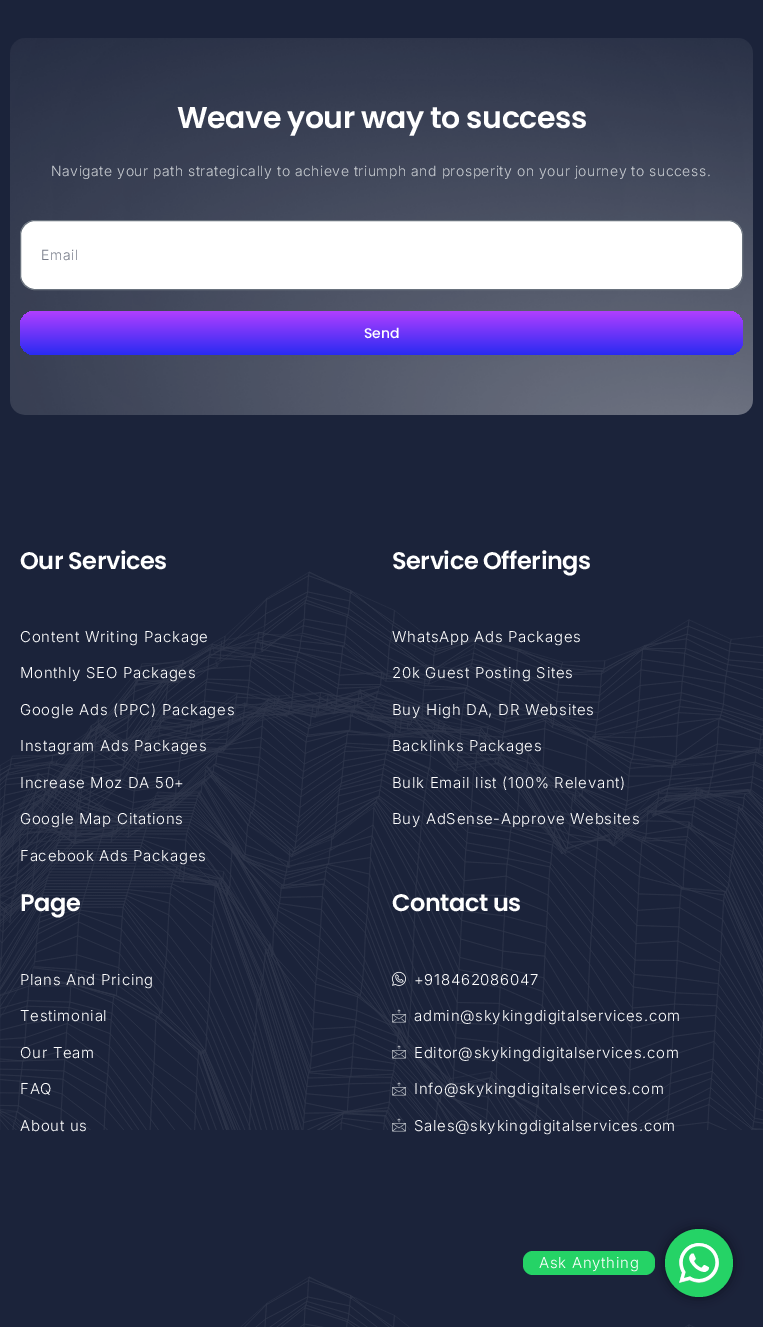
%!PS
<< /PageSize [763 1327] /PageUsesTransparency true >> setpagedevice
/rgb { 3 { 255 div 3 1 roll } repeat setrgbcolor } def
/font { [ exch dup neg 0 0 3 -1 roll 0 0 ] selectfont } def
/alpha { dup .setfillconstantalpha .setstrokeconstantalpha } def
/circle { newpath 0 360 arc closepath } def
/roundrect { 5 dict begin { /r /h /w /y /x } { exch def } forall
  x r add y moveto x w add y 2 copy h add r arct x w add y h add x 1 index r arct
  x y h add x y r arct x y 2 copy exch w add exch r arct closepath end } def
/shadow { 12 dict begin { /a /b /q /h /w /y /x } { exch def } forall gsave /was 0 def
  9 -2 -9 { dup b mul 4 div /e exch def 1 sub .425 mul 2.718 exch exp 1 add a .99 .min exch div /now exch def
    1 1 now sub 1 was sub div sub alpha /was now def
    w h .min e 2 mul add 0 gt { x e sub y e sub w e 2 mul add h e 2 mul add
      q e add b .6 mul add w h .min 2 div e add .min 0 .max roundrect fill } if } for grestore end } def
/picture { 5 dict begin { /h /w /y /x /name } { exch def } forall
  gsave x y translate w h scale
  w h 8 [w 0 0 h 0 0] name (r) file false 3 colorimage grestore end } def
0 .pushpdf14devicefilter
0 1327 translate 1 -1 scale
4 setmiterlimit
27 35 58 rgb
0 0 763 1327 rectfill
(img/1.rgb) 10 38 743 377 picture
255 255 255 rgb
20.5 220.5 722 69 14.5 roundrect gsave fill grestore
105 114 125 rgb
stroke
gsave 20 311 723 44 15 roundrect clip newpath
<< /ShadingType 2 /ColorSpace /DeviceRGB /Coords [382 311 382 355] /Extend [true true] /Function << /FunctionType 2 /Domain [0 1] /C0 [0.694 0.247 1] /C1 [0.161 0.169 0.949] /N 1 >> >> shfill grestore
(img/7.rgb) 0 571 763 756 picture
(img/2.rgb) 392 971 14 15 picture
(img/3.rgb) 392 1009 14 14 picture
(img/4.rgb) 392 1045 14 14 picture
(img/5.rgb) 392 1082 14 14 picture
(img/6.rgb) 392 1118 14 14 picture
37 211 102 rgb
523 1251 132 24 10 roundrect fill
0 0 0 rgb
665 1229 68 68 34 5.5 0.5 shadow
37 211 102 rgb
699 1263 34 circle fill
(img/8.rgb) 679 1243 40 40 picture
/Poppins-SemiBold 30 font
255 255 255 rgb
177 128 moveto -0.5 0 (Weave your way to success) ashow
/Inter-Light 14 font
202 206 211 rgb
51 176 moveto 0.5 0 (Navigate your path strategically to achieve triumph and prosperity on your journey to success.) ashow
118 123 136 rgb
41 260 moveto 0.5 0 (Email) ashow
/Poppins-Medium 14 font
255 255 255 rgb
364 338 moveto (Send) show
/Poppins-SemiBold 24 font
20 569 moveto -0.5 0 (Our Services) ashow
/Inter-Light 15 font
20 642 moveto 0.7 0 (Content Writing Package) ashow
20 678 moveto 0.7 0 (Monthly SEO Packages) ashow
20 715 moveto 0.7 0 (Google Ads \(PPC\) Packages) ashow
20 751 moveto 0.7 0 (Instagram Ads Packages) ashow
20 788 moveto 0.7 0 (Increase Moz DA 50+) ashow
20 824 moveto 0.7 0 (Google Map Citations) ashow
20 861 moveto 0.7 0 (Facebook Ads Packages) ashow
/Poppins-SemiBold 24 font
392 569 moveto -0.5 0 (Service Offerings) ashow
/Inter-Light 15 font
392 642 moveto 0.7 0 (WhatsApp Ads Packages) ashow
392 678 moveto 0.7 0 (20k Guest Posting Sites) ashow
392 715 moveto 0.7 0 (Buy High DA, DR Websites) ashow
392 751 moveto 0.7 0 (Backlinks Packages) ashow
392 788 moveto 0.7 0 (Bulk Email list \(100% Relevant\)) ashow
392 824 moveto 0.7 0 (Buy AdSense-Approve Websites) ashow
/Poppins-SemiBold 24 font
20 911 moveto -0.5 0 (Page) ashow
/Inter-Light 15 font
20 985 moveto 0.7 0 (Plans And Pricing) ashow
20 1021 moveto 0.7 0 (Testimonial) ashow
20 1058 moveto 0.7 0 (Our Team) ashow
20 1094 moveto 0.7 0 (FAQ) ashow
20 1131 moveto 0.7 0 (About us) ashow
/Poppins-SemiBold 24 font
392 911 moveto -0.5 0 (Contact us) ashow
/Inter-Light 15 font
414 985 moveto 0.7 0 (+918462086047) ashow
414 1021 moveto 0.7 0 (admin@skykingdigitalservices.com) ashow
414 1058 moveto 0.7 0 (Editor@skykingdigitalservices.com) ashow
414 1094 moveto 0.7 0 (Info@skykingdigitalservices.com) ashow
414 1131 moveto 0.7 0 (Sales@skykingdigitalservices.com) ashow
539 1268 moveto 0.7 0 (Ask Anything) ashow
.poppdf14devicefilter showpage
